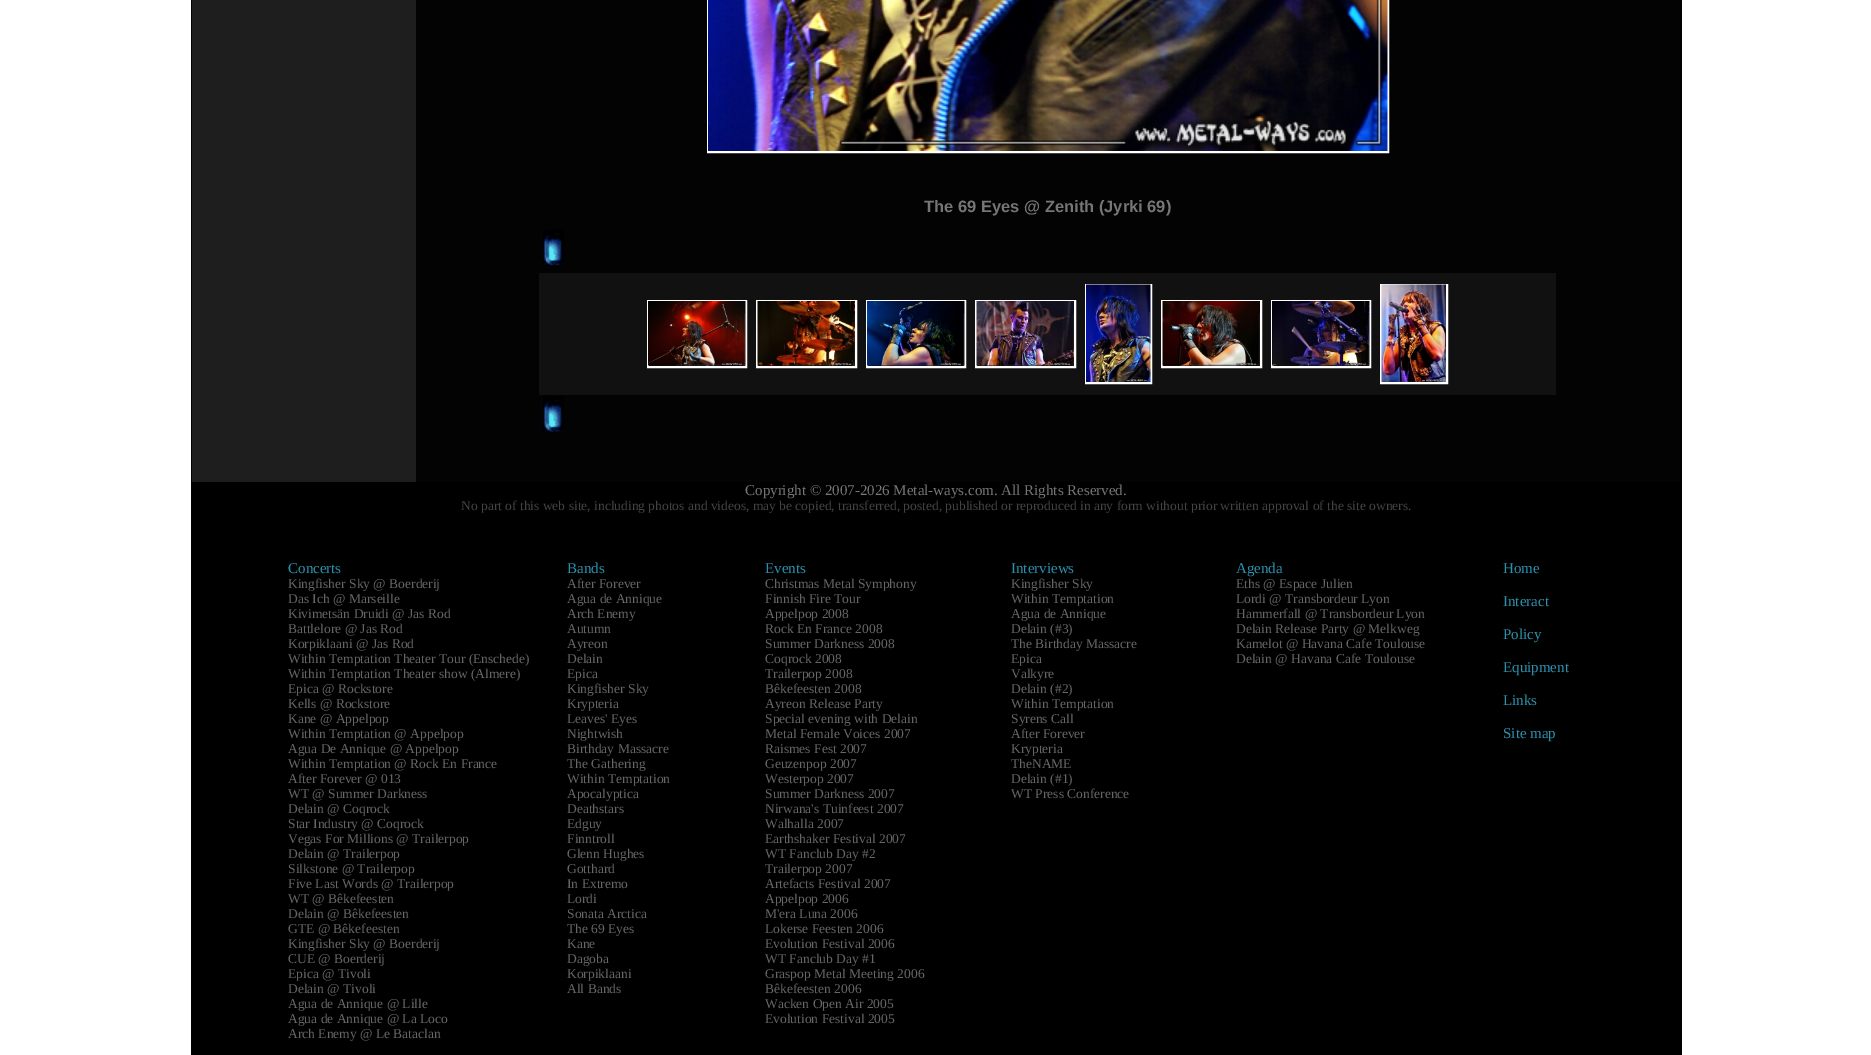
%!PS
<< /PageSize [1871 1055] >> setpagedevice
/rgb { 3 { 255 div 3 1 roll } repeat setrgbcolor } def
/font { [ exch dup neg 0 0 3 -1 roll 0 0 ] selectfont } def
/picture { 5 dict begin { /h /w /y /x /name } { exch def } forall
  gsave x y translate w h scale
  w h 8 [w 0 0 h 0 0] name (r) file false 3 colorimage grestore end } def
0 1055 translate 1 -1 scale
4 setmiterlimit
255 255 255 rgb
0 0 1871 1055 rectfill
[
  [1680 0 2 1055 0 0 0]
  [191 0 1 1055 0 0 0]
  [192 0 224 482 30 30 30]
  [416 0 1264 482 3 3 3]
] { aload pop rgb rectfill } forall
255 255 255 rgb
2 setlinewidth
708 -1 680 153 rectstroke
(img/1.rgb) 708 0 680 151 picture
(img/2.rgb) 543 229 21 37 picture
17 17 17 rgb
539 273 1017 122 rectfill
255 255 255 rgb
648 301 98 66 rectstroke
(img/3.rgb) 648 301 98 65 picture
757 301 99 66 rectstroke
(img/4.rgb) 757 301 98 65 picture
867 301 98 66 rectstroke
(img/5.rgb) 867 301 98 65 picture
976 301 99 66 rectstroke
(img/6.rgb) 976 301 98 65 picture
1086 285 65 98 rectstroke
(img/7.rgb) 1086 284 65 98 picture
1162 301 99 66 rectstroke
(img/8.rgb) 1162 301 98 65 picture
1272 301 98 66 rectstroke
(img/9.rgb) 1272 301 98 65 picture
1381 285 66 98 rectstroke
(img/10.rgb) 1381 284 65 98 picture
(img/11.rgb) 543 395 21 37 picture
0 0 0 rgb
192 482 1488 573 rectfill
/LiberationSans-Bold 16.5 font
118 118 118 rgb
924 212 moveto (The 69 Eyes @ Zenith \(Jyrki 69\)) show
/LiberationSerif-Regular 15 font
745 495 moveto (Copyright © 2007-2026 Metal-ways.com. All Rights Reserved.) show
/LiberationSerif-Regular 13.5 font
68 68 68 rgb
461 510 moveto (No part of this web site, including photos and videos, may be copied, transferred, posted, published or reproduced in any form without prior written approval of the site owners.) show
/LiberationSerif-Regular 15 font
43 145 172 rgb
288 573 moveto (Concerts) show
/LiberationSerif-Regular 13.5 font
102 102 102 rgb
[
  [(Kingfisher Sky @ Boerderij) 288 588]
  [(Das Ich @ Marseille) 288 603]
  [(Kivimetsän Druidi @ Jas Rod) 288 618]
  [(Battlelore @ Jas Rod) 288 633]
  [(Korpiklaani @ Jas Rod) 288 648]
  [(Within Temptation Theater Tour \(Enschede\)) 288 663]
  [(Within Temptation Theater show \(Almere\)) 288 678]
  [(Epica @ Rockstore) 288 693]
  [(Kells @ Rockstore) 288 708]
  [(Kane @ Appelpop) 288 723]
  [(Within Temptation @ Appelpop) 288 738]
  [(Agua De Annique @ Appelpop) 288 753]
  [(Within Temptation @ Rock En France) 288 768]
  [(After Forever @ 013) 288 783]
  [(WT @ Summer Darkness) 288 798]
  [(Delain @ Coqrock) 288 813]
  [(Star Industry @ Coqrock) 288 828]
  [(Vegas For Millions @ Trailerpop) 288 843]
  [(Delain @ Trailerpop) 288 858]
  [(Silkstone @ Trailerpop) 288 873]
  [(Five Last Words @ Trailerpop) 288 888]
  [(WT @ Bêkefeesten) 288 903]
  [(Delain @ Bêkefeesten) 288 918]
  [(GTE @ Bêkefeesten) 288 933]
  [(Kingfisher Sky @ Boerderij) 288 948]
  [(CUE @ Boerderij) 288 963]
  [(Epica @ Tivoli) 288 978]
  [(Delain @ Tivoli) 288 993]
  [(Agua de Annique @ Lille) 288 1008]
  [(Agua de Annique @ La Loco) 288 1023]
  [(Arch Enemy @ Le Bataclan) 288 1038]
] { aload pop moveto show } forall
/LiberationSerif-Regular 15 font
43 145 172 rgb
567 573 moveto (Bands) show
/LiberationSerif-Regular 13.5 font
102 102 102 rgb
[
  [(After Forever) 567 588]
  [(Agua de Annique) 567 603]
  [(Arch Enemy) 567 618]
  [(Autumn) 567 633]
  [(Ayreon) 567 648]
  [(Delain) 567 663]
  [(Epica) 567 678]
  [(Kingfisher Sky) 567 693]
  [(Krypteria) 567 708]
  [(Leaves' Eyes) 567 723]
  [(Nightwish) 567 738]
  [(Birthday Massacre) 567 753]
  [(The Gathering) 567 768]
  [(Within Temptation) 567 783]
  [(Apocalyptica) 567 798]
  [(Deathstars) 567 813]
  [(Edguy) 567 828]
  [(Finntroll) 567 843]
  [(Glenn Hughes) 567 858]
  [(Gotthard) 567 873]
  [(In Extremo) 567 888]
  [(Lordi) 567 903]
  [(Sonata Arctica) 567 918]
  [(The 69 Eyes) 567 933]
  [(Kane) 567 948]
  [(Dagoba) 567 963]
  [(Korpiklaani) 567 978]
  [(All Bands) 567 993]
] { aload pop moveto show } forall
/LiberationSerif-Regular 15 font
43 145 172 rgb
765 573 moveto (Events) show
/LiberationSerif-Regular 13.5 font
102 102 102 rgb
[
  [(Christmas Metal Symphony) 765 588]
  [(Finnish Fire Tour) 765 603]
  [(Appelpop 2008) 765 618]
  [(Rock En France 2008) 765 633]
  [(Summer Darkness 2008) 765 648]
  [(Coqrock 2008) 765 663]
  [(Trailerpop 2008) 765 678]
  [(Bêkefeesten 2008) 765 693]
  [(Ayreon Release Party) 765 708]
  [(Special evening with Delain) 765 723]
  [(Metal Female Voices 2007) 765 738]
  [(Raismes Fest 2007) 765 753]
  [(Geuzenpop 2007) 765 768]
  [(Westerpop 2007) 765 783]
  [(Summer Darkness 2007) 765 798]
  [(Nirwana's Tuinfeest 2007) 765 813]
  [(Walhalla 2007) 765 828]
  [(Earthshaker Festival 2007) 765 843]
  [(WT Fanclub Day #2) 765 858]
  [(Trailerpop 2007) 765 873]
  [(Artefacts Festival 2007) 765 888]
  [(Appelpop 2006) 765 903]
  [(M'era Luna 2006) 765 918]
  [(Lokerse Feesten 2006) 765 933]
  [(Evolution Festival 2006) 765 948]
  [(WT Fanclub Day #1) 765 963]
  [(Graspop Metal Meeting 2006) 765 978]
  [(Bêkefeesten 2006) 765 993]
  [(Wacken Open Air 2005) 765 1008]
  [(Evolution Festival 2005) 765 1023]
] { aload pop moveto show } forall
/LiberationSerif-Regular 15 font
43 145 172 rgb
1011 573 moveto (Interviews) show
/LiberationSerif-Regular 13.5 font
102 102 102 rgb
[
  [(Kingfisher Sky) 1011 588]
  [(Within Temptation) 1011 603]
  [(Agua de Annique) 1011 618]
  [(Delain \(#3\)) 1011 633]
  [(The Birthday Massacre) 1011 648]
  [(Epica) 1011 663]
  [(Valkyre) 1011 678]
  [(Delain \(#2\)) 1011 693]
  [(Within Temptation) 1011 708]
  [(Syrens Call) 1011 723]
  [(After Forever) 1011 738]
  [(Krypteria) 1011 753]
  [(TheNAME) 1011 768]
  [(Delain \(#1\)) 1011 783]
  [(WT Press Conference) 1011 798]
] { aload pop moveto show } forall
/LiberationSerif-Regular 15 font
43 145 172 rgb
1236 573 moveto (Agenda) show
/LiberationSerif-Regular 13.5 font
102 102 102 rgb
[
  [(Eths @ Espace Julien) 1236 588]
  [(Lordi @ Transbordeur Lyon) 1236 603]
  [(Hammerfall @ Transbordeur Lyon) 1236 618]
  [(Delain Release Party @ Melkweg) 1236 633]
  [(Kamelot @ Havana Cafe Toulouse) 1236 648]
  [(Delain @ Havana Cafe Toulouse) 1236 663]
] { aload pop moveto show } forall
/LiberationSerif-Regular 15 font
43 145 172 rgb
[
  [(Home) 1503 573]
  [(Interact) 1503 606]
  [(Policy) 1503 639]
  [(Equipment) 1503 672]
  [(Links) 1503 705]
  [(Site map) 1503 738]
] { aload pop moveto show } forall
showpage
